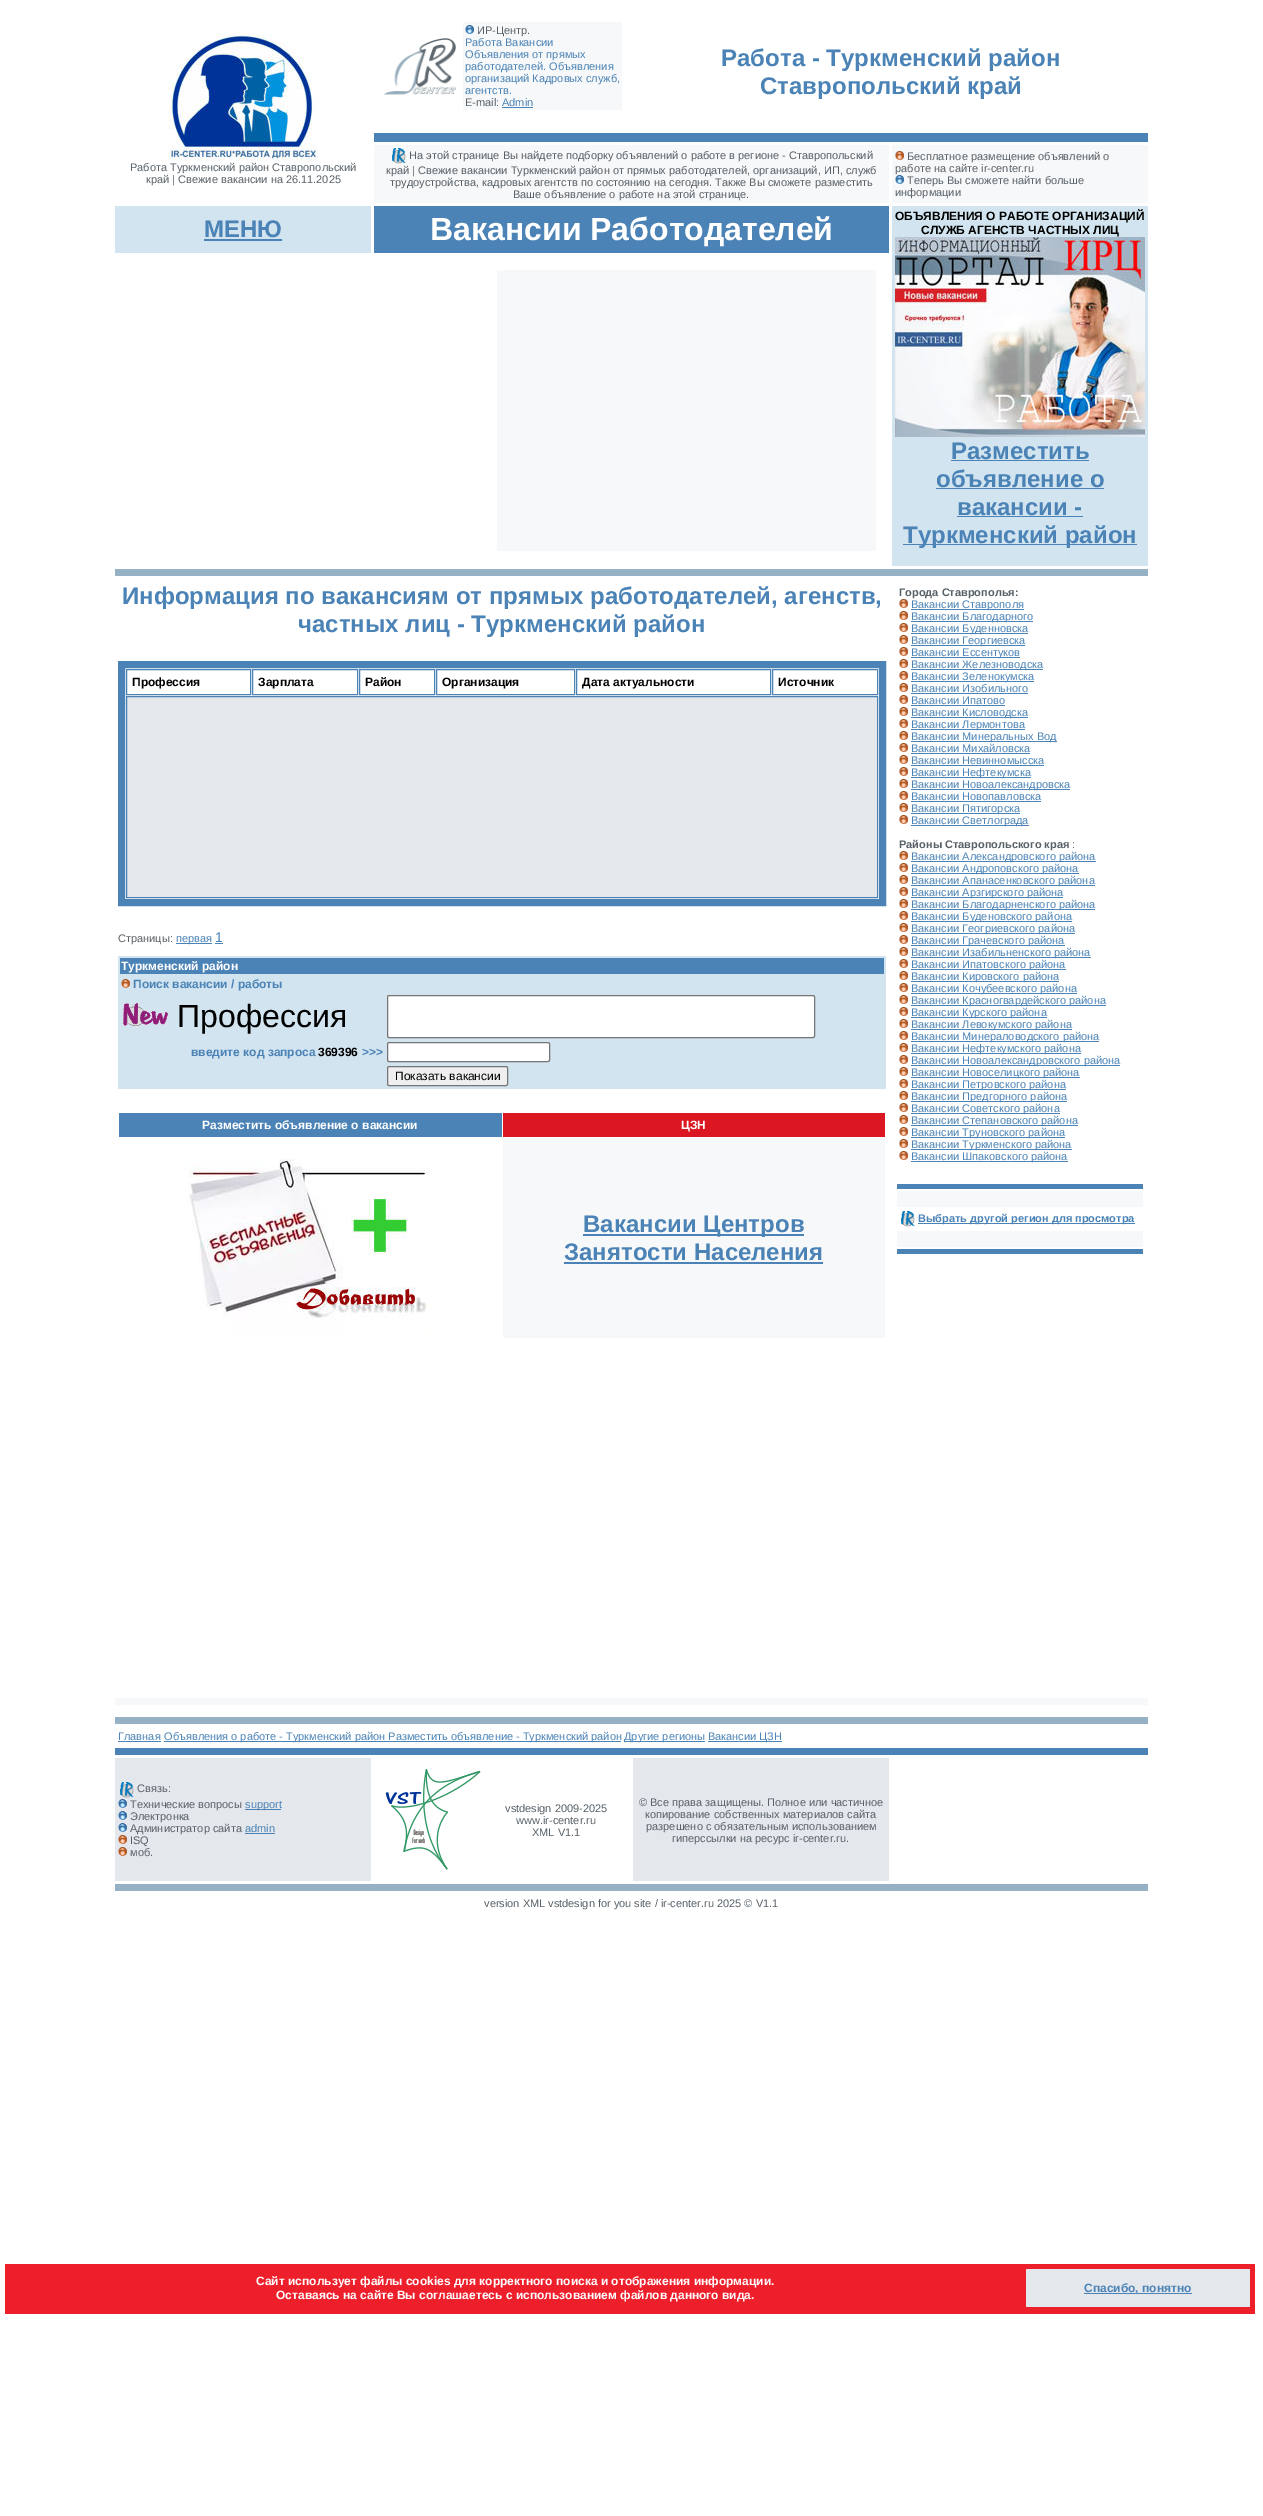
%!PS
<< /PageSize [1263 2516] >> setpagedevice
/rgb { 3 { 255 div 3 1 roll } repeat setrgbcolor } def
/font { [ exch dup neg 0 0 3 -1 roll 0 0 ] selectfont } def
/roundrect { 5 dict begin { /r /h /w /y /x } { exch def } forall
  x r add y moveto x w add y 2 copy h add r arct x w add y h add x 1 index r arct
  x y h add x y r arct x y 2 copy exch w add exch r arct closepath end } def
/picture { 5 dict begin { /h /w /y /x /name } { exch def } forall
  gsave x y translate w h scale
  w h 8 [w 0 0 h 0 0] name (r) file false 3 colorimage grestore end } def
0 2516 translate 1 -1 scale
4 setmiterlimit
255 255 255 rgb
0 0 1263 2516 rectfill
(img/1.rgb) 384 38 72 57 picture
247 248 249 rgb
463 22 159 88 rectfill
(img/2.rgb) 465 25 9 9 picture
75 131 182 rgb
502 107 31 1 rectfill
(img/3.rgb) 168 33 150 128 picture
374 133 774 9 rectfill
247 248 249 rgb
374 145 515 58 rectfill
(img/4.rgb) 392 148 14 16 picture
892 145 256 58 rectfill
(img/5.rgb) 895 151 9 9 picture
(img/2.rgb) 895 175 9 9 picture
[
  [115 206 256 47 209 228 239]
  [204 239 78 2 75 131 182]
  [374 206 515 47 75 131 182]
  [892 206 256 360 209 228 239]
] { aload pop rgb rectfill } forall
(img/6.rgb) 895 237 250 200 picture
[
  [951 460 138 1 75 131 182]
  [936 488 168 1 75 131 182]
  [957 516 126 1 75 131 182]
  [903 544 234 1 75 131 182]
  [497 270 379 281 247 248 249]
  [115 569 1033 7 150 177 196]
] { aload pop rgb rectfill } forall
75 131 182 rgb
7 setlinewidth
121.5 664.5 761 238 rectstroke
1 setlinewidth
126.5 669.5 124 25 rectstroke
252.5 669.5 105 25 rectstroke
359.5 669.5 75 25 rectstroke
436.5 669.5 138 25 rectstroke
576.5 669.5 194 25 rectstroke
772.5 669.5 105 25 rectstroke
228 231 236 rgb
126.5 696.5 moveto 877.5 696.5 lineto 877.5 897.5 lineto 126.5 897.5 lineto closepath gsave fill grestore
75 131 182 rgb
stroke
[
  [176 943 36 1 75 131 182]
  [215 943 8 1 75 131 182]
  [118 956 768 133 209 228 239]
  [120 958 764 16 75 131 182]
] { aload pop rgb rectfill } forall
(img/7.rgb) 121 979 9 9 picture
(img/8.rgb) 123 1003 45 24 picture
255 255 255 rgb
387.5 995.5 427 42 1.5 roundrect gsave fill grestore
118 118 118 rgb
stroke
255 255 255 rgb
387.5 1042.5 162 19 1.5 roundrect gsave fill grestore
118 118 118 rgb
stroke
239 239 239 rgb
387.5 1066.5 120 19 1.5 roundrect gsave fill grestore
118 118 118 rgb
stroke
75 131 182 rgb
119 1113 383 24 rectfill
219 23 33 rgb
503 1113 382 24 rectfill
(img/9.rgb) 183 1159 248 174 picture
[
  [503 1138 382 200 247 248 249]
  [583 1234 221 2 75 131 182]
  [564 1262 259 2 75 131 182]
] { aload pop rgb rectfill } forall
(img/10.rgb) 899 599 9 9 picture
911 609 113 1 rectfill
(img/10.rgb) 899 611 9 9 picture
911 621 122 1 rectfill
(img/10.rgb) 899 623 9 9 picture
911 633 117 1 rectfill
(img/10.rgb) 899 635 9 9 picture
911 645 114 1 rectfill
(img/10.rgb) 899 647 9 9 picture
911 657 109 1 rectfill
(img/10.rgb) 899 659 9 9 picture
911 669 132 1 rectfill
(img/10.rgb) 899 671 9 9 picture
911 681 123 1 rectfill
(img/10.rgb) 899 683 9 9 picture
911 693 117 1 rectfill
(img/10.rgb) 899 695 9 9 picture
911 705 94 1 rectfill
(img/10.rgb) 899 707 9 9 picture
911 717 117 1 rectfill
(img/10.rgb) 899 719 9 9 picture
911 729 114 1 rectfill
(img/10.rgb) 899 731 9 9 picture
911 741 146 1 rectfill
(img/10.rgb) 899 743 9 9 picture
911 753 119 1 rectfill
(img/10.rgb) 899 755 9 9 picture
911 765 133 1 rectfill
(img/10.rgb) 899 767 9 9 picture
911 777 120 1 rectfill
(img/10.rgb) 899 779 9 9 picture
911 789 159 1 rectfill
(img/10.rgb) 899 791 9 9 picture
911 801 130 1 rectfill
(img/10.rgb) 899 803 9 9 picture
911 813 109 1 rectfill
(img/10.rgb) 899 815 9 9 picture
911 825 118 1 rectfill
(img/10.rgb) 899 851 9 9 picture
911 861 185 1 rectfill
(img/10.rgb) 899 863 9 9 picture
911 873 168 1 rectfill
(img/10.rgb) 899 875 9 9 picture
911 885 184 1 rectfill
(img/10.rgb) 899 887 9 9 picture
911 897 152 1 rectfill
(img/10.rgb) 899 899 9 9 picture
911 909 184 1 rectfill
(img/10.rgb) 899 911 9 9 picture
911 921 161 1 rectfill
(img/10.rgb) 899 923 9 9 picture
911 933 164 1 rectfill
(img/10.rgb) 899 935 9 9 picture
911 945 154 1 rectfill
(img/10.rgb) 899 947 9 9 picture
911 957 180 1 rectfill
(img/10.rgb) 899 959 9 9 picture
911 969 155 1 rectfill
(img/10.rgb) 899 971 9 9 picture
911 981 148 1 rectfill
(img/10.rgb) 899 983 9 9 picture
911 993 166 1 rectfill
(img/10.rgb) 899 995 9 9 picture
911 1005 195 1 rectfill
(img/10.rgb) 899 1007 9 9 picture
911 1017 136 1 rectfill
(img/10.rgb) 899 1019 9 9 picture
911 1029 161 1 rectfill
(img/10.rgb) 899 1031 9 9 picture
911 1041 188 1 rectfill
(img/10.rgb) 899 1043 9 9 picture
911 1053 170 1 rectfill
(img/10.rgb) 899 1055 9 9 picture
911 1065 209 1 rectfill
(img/10.rgb) 899 1067 9 9 picture
911 1077 169 1 rectfill
(img/10.rgb) 899 1079 9 9 picture
911 1089 155 1 rectfill
(img/10.rgb) 899 1091 9 9 picture
911 1101 156 1 rectfill
(img/10.rgb) 899 1103 9 9 picture
911 1113 149 1 rectfill
(img/10.rgb) 899 1115 9 9 picture
911 1125 167 1 rectfill
(img/10.rgb) 899 1127 9 9 picture
911 1137 154 1 rectfill
(img/10.rgb) 899 1139 9 9 picture
911 1149 161 1 rectfill
(img/10.rgb) 899 1151 9 9 picture
[
  [911 1161 157 1 75 131 182]
  [897 1184 246 5 75 131 182]
  [897 1191 246 16 247 248 249]
] { aload pop rgb rectfill } forall
(img/11.rgb) 901 1211 14 16 picture
[
  [918 1223 217 1 75 131 182]
  [897 1231 246 16 247 248 249]
  [897 1249 246 5 75 131 182]
  [115 1698 1033 7 247 248 249]
  [115 1717 1033 7 150 177 196]
  [118 1741 43 1 75 131 182]
  [164 1741 457 1 75 131 182]
  [624 1741 81 1 75 131 182]
  [708 1741 74 1 75 131 182]
  [115 1748 1033 7 75 131 182]
  [115 1758 256 123 228 231 236]
] { aload pop rgb rectfill } forall
(img/12.rgb) 120 1782 14 16 picture
(img/13.rgb) 118 1799 9 9 picture
75 131 182 rgb
245 1809 36 1 rectfill
(img/13.rgb) 118 1811 9 9 picture
(img/13.rgb) 118 1823 9 9 picture
245 1833 30 1 rectfill
(img/14.rgb) 118 1835 9 9 picture
(img/14.rgb) 118 1847 9 9 picture
(img/15.rgb) 385 1769 96 101 picture
[
  [633 1758 256 123 228 231 236]
  [115 1884 1033 7 150 177 196]
  [5 2264 1250 50 237 31 43]
  [1026 2269 224 38 228 231 236]
  [1084 2293 108 1 75 131 182]
] { aload pop rgb rectfill } forall
/LiberationSans-Regular 11 font
88 97 104 rgb
477 34 moveto (ИР-Центр.) show
75 131 182 rgb
[
  [(Работа Вакансии) 465 46]
  [(Объявления от прямых) 465 58]
  [(работодателей. Объявления) 465 70]
  [(организаций Кадровых служб,) 465 82]
  [(агентств.) 465 94]
] { aload pop moveto show } forall
88 97 104 rgb
465 106 moveto (E-mail:) show
75 131 182 rgb
502 106 moveto (Admin) show
/LiberationSans-Bold 24 font
721 66 moveto (Работа - Туркменский район) show
760 94 moveto (Ставропольский край) show
/LiberationSans-Regular 11 font
88 97 104 rgb
[
  [(Работа Туркменский район Ставропольский) 130 171]
  [(край | Свежие вакансии на 26.11.2025) 146 183]
  [(На этой странице Вы найдете подборку объявлений о работе в регионе - Ставропольский) 409 159]
  [(край | Свежие вакансии Туркменский район от прямых работодателей, организаций, ИП, служб) 386 174]
  [(трудоустройства, кадровых агентств по состоянию на сегодня. Также Вы сможете разместить) 390 186]
  [(Ваше объявление о работе на этой странице.) 513 198]
  [(Бесплатное размещение объявлений о) 907 160]
  [(работе на сайте ir-center.ru) 895 172]
  [(Теперь Вы сможете найти больше) 907 184]
  [(информации) 895 196]
] { aload pop moveto show } forall
/LiberationSans-Bold 24 font
75 131 182 rgb
204 237 moveto (МЕНЮ) show
/LiberationSans-Bold 32 font
255 255 255 rgb
430 240 moveto (Вакансии Работодателей) show
/LiberationSans-Bold 12 font
0 0 0 rgb
895 220 moveto (ОБЪЯВЛЕНИЯ О РАБОТЕ ОРГАНИЗАЦИЙ) show
921 234 moveto (СЛУЖБ АГЕНСТВ ЧАСТНЫХ ЛИЦ) show
/LiberationSans-Bold 24 font
75 131 182 rgb
[
  [(Разместить) 951 459]
  [(объявление о) 936 487]
  [(вакансии -) 957 515]
  [(Туркменский район) 903 543]
  [(Информация по вакансиям от прямых работодателей, агенств,) 122 604]
  [(частных лиц - Туркменский район) 298 632]
] { aload pop moveto show } forall
/LiberationSans-Bold 12 font
0 0 0 rgb
[
  [(Профессия) 132 686]
  [(Зарплата) 258 686]
  [(Район) 365 686]
  [(Организация) 442 686]
  [(Дата актуальности) 582 686]
  [(Источник) 778 686]
] { aload pop moveto show } forall
/LiberationSans-Regular 11 font
88 97 104 rgb
118 942 moveto (Страницы:) show
75 131 182 rgb
176 942 moveto (первая) show
/LiberationSans-Regular 14 font
215 942 moveto (1) show
/LiberationSans-Bold 12 font
255 255 255 rgb
121 970 moveto (Туркменский район) show
75 131 182 rgb
133 988 moveto (Поиск вакансии / работы) show
/LiberationSans-Regular 32 font
0 0 0 rgb
177 1027 moveto (Профессия) show
/LiberationSans-Bold 12 font
75 131 182 rgb
191 1056 moveto (введите код запроса) show
0 0 0 rgb
318 1056 moveto (369396) show
75 131 182 rgb
362 1056 moveto (>>>) show
/LiberationSans-Regular 12 font
0 0 0 rgb
395 1080 moveto (Показать вакансии) show
/LiberationSans-Bold 12 font
255 255 255 rgb
202 1129 moveto (Разместить объявление о вакансии) show
681 1129 moveto (ЦЗН) show
/LiberationSans-Bold 24 font
75 131 182 rgb
583 1232 moveto (Вакансии Центров) show
564 1260 moveto (Занятости Населения) show
/LiberationSans-Bold 11 font
88 97 104 rgb
899 596 moveto (Города Ставрополья:) show
/LiberationSans-Regular 11 font
75 131 182 rgb
[
  [(Вакансии Ставрополя) 911 608]
  [(Вакансии Благодарного) 911 620]
  [(Вакансии Буденновска) 911 632]
  [(Вакансии Георгиевска) 911 644]
  [(Вакансии Ессентуков) 911 656]
  [(Вакансии Железноводска) 911 668]
  [(Вакансии Зеленокумска) 911 680]
  [(Вакансии Изобильного) 911 692]
  [(Вакансии Ипатово) 911 704]
  [(Вакансии Кисловодска) 911 716]
  [(Вакансии Лермонтова) 911 728]
  [(Вакансии Минеральных Вод) 911 740]
  [(Вакансии Михайловска) 911 752]
  [(Вакансии Невинномысска) 911 764]
  [(Вакансии Нефтекумска) 911 776]
  [(Вакансии Новоалександровска) 911 788]
  [(Вакансии Новопавловска) 911 800]
  [(Вакансии Пятигорска) 911 812]
  [(Вакансии Светлограда) 911 824]
] { aload pop moveto show } forall
/LiberationSans-Bold 11 font
88 97 104 rgb
899 848 moveto (Районы Ставропольского края) show
/LiberationSans-Regular 11 font
1072 848 moveto (:) show
75 131 182 rgb
[
  [(Вакансии Александровского района) 911 860]
  [(Вакансии Андроповского района) 911 872]
  [(Вакансии Апанасенковского района) 911 884]
  [(Вакансии Арзгирского района) 911 896]
  [(Вакансии Благодарненского района) 911 908]
  [(Вакансии Буденовского района) 911 920]
  [(Вакансии Геогриевского района) 911 932]
  [(Вакансии Грачевского района) 911 944]
  [(Вакансии Изабильненского района) 911 956]
  [(Вакансии Ипатовского района) 911 968]
  [(Вакансии Кировского района) 911 980]
  [(Вакансии Кочубеевского района) 911 992]
  [(Вакансии Красногвардейского района) 911 1004]
  [(Вакансии Курского района) 911 1016]
  [(Вакансии Левокумского района) 911 1028]
  [(Вакансии Минераловодского района) 911 1040]
  [(Вакансии Нефтекумского района) 911 1052]
  [(Вакансии Новоалександровского района) 911 1064]
  [(Вакансии Новоселицкого района) 911 1076]
  [(Вакансии Петровского района) 911 1088]
  [(Вакансии Предгорного района) 911 1100]
  [(Вакансии Советского района) 911 1112]
  [(Вакансии Степановского района) 911 1124]
  [(Вакансии Труновского района) 911 1136]
  [(Вакансии Туркменского района) 911 1148]
  [(Вакансии Шпаковского района) 911 1160]
] { aload pop moveto show } forall
/LiberationSans-Bold 11 font
918 1222 moveto (Выбрать другой регион для просмотра) show
/LiberationSans-Regular 11 font
[
  [(Главная) 118 1740]
  [(Объявления о работе - Туркменский район Разместить объявление - Туркменский район) 164 1740]
  [(Другие регионы) 624 1740]
  [(Вакансии ЦЗН) 708 1740]
] { aload pop moveto show } forall
88 97 104 rgb
137 1792 moveto (Связь:) show
130 1808 moveto (Технические вопросы) show
75 131 182 rgb
245 1808 moveto (support) show
88 97 104 rgb
130 1820 moveto (Электронка) show
130 1832 moveto (Администратор сайта) show
75 131 182 rgb
245 1832 moveto (admin) show
88 97 104 rgb
[
  [(ISQ) 130 1844]
  [(моб.) 130 1856]
  [(vstdesign 2009-2025) 505 1812]
  [(www.ir-center.ru) 516 1824]
  [(XML V1.1) 532 1836]
  [(© Все права защищены. Полное или частичное) 639 1806]
  [(копирование собственных материалов сайта) 645 1818]
  [(разрешено с обязательным использованием) 646 1830]
  [(гиперссылки на ресурс ir-center.ru.) 672 1842]
  [(version XML vstdesign for you site / ir-center.ru 2025 © V1.1) 484 1907]
] { aload pop moveto show } forall
/LiberationSans-Bold 12 font
255 255 255 rgb
256 2285 moveto (Сайт использует файлы cookies для корректного поиска и отображения информации.) show
276 2299 moveto (Оставаясь на сайте Вы соглашаетесь с использованием файлов данного вида.) show
75 131 182 rgb
1084 2292 moveto (Спасибо, понятно) show
showpage
